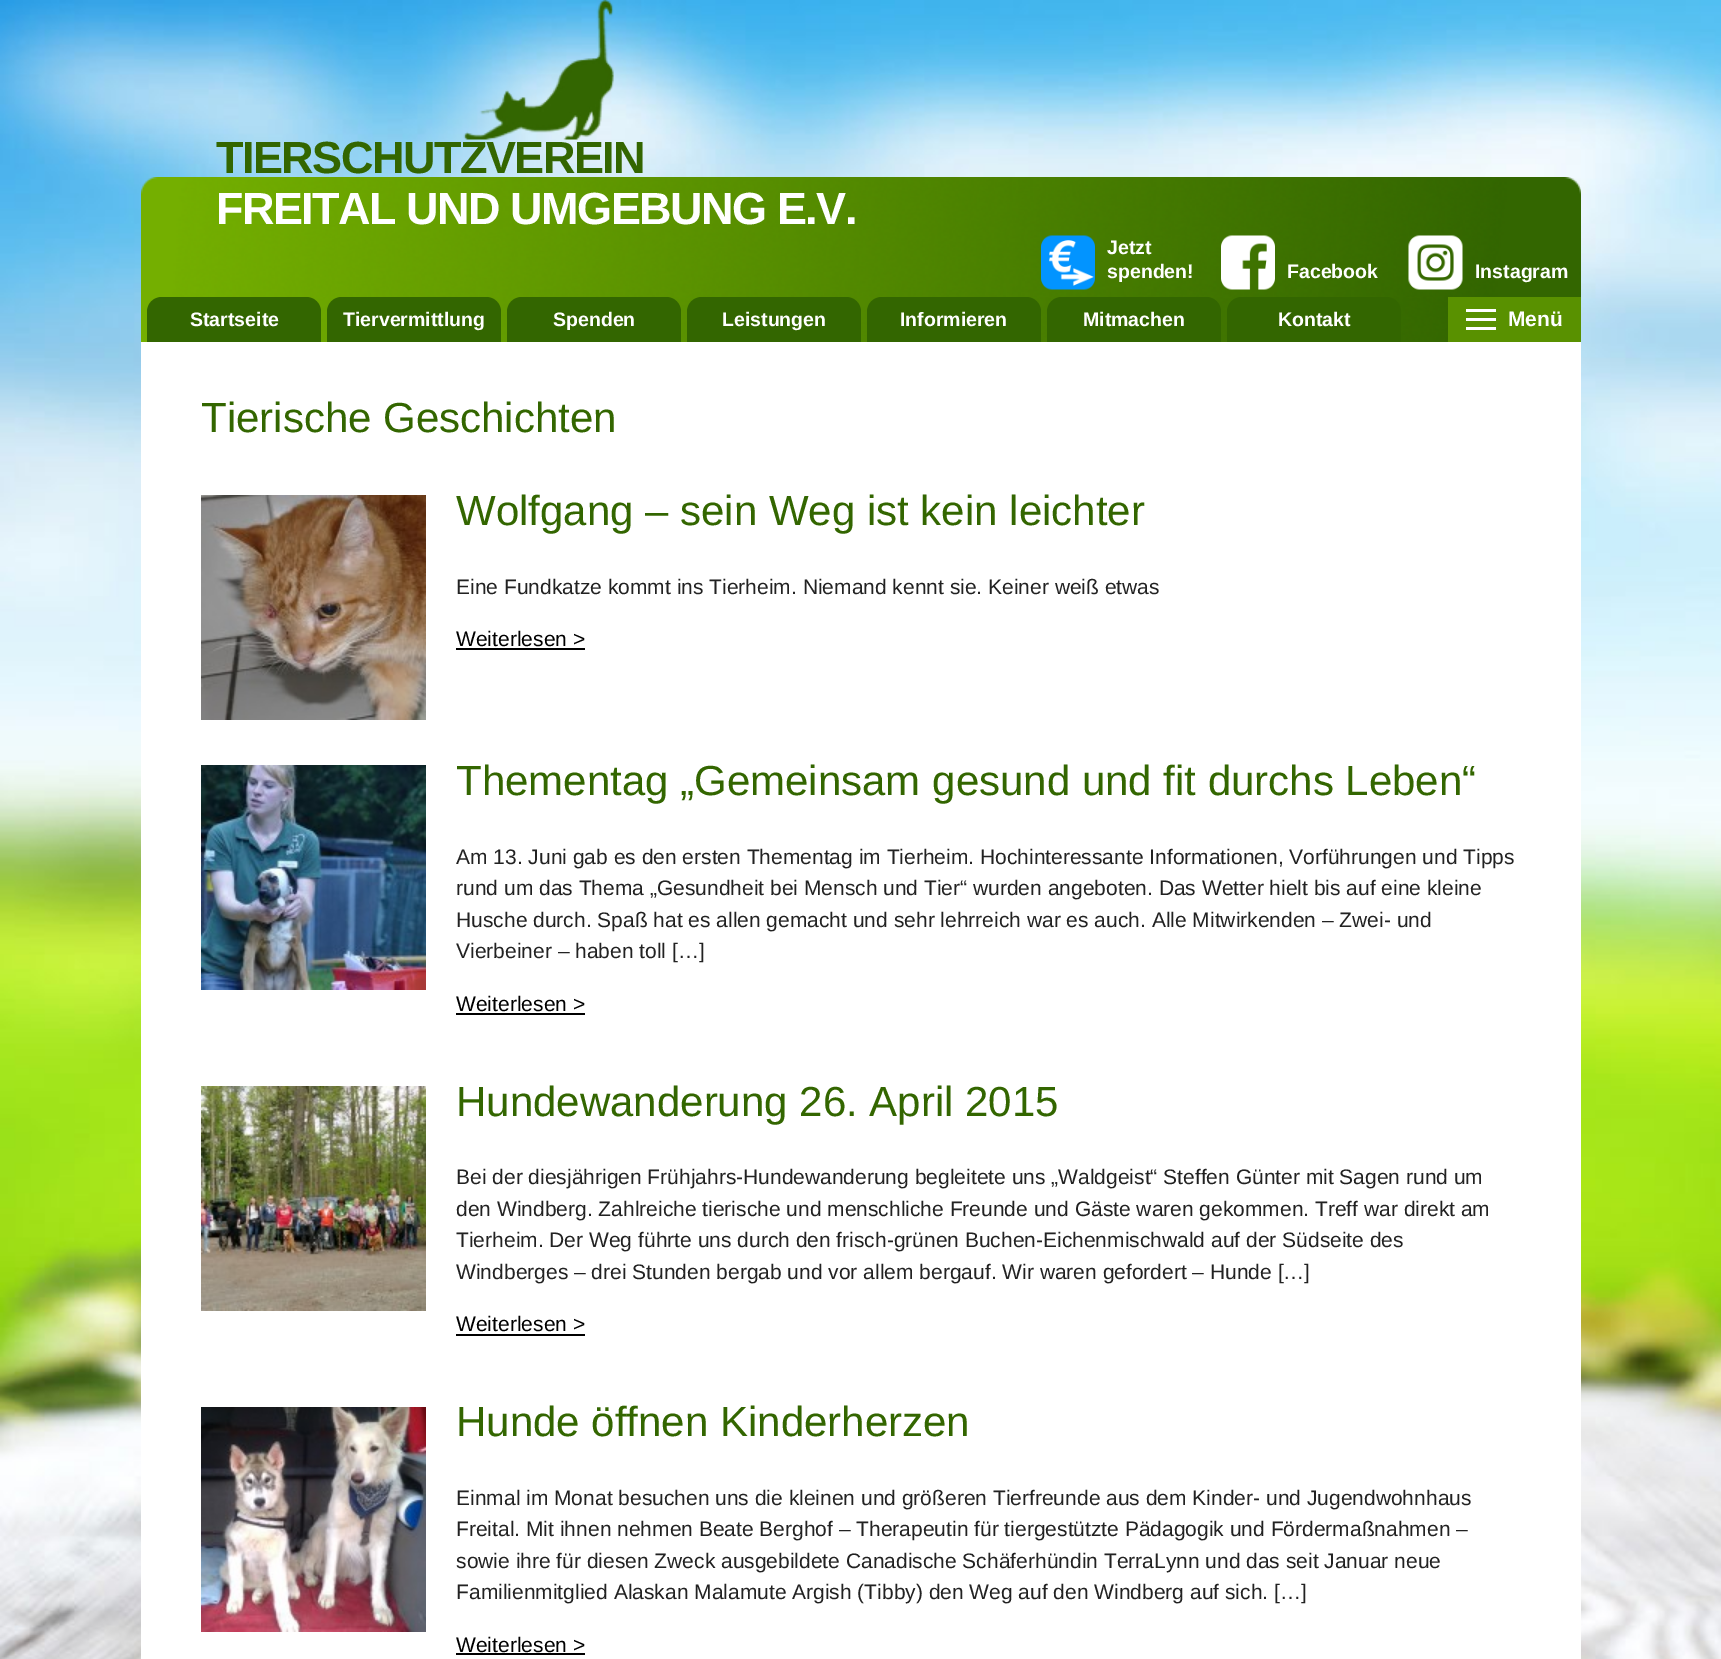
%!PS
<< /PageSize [1721 1659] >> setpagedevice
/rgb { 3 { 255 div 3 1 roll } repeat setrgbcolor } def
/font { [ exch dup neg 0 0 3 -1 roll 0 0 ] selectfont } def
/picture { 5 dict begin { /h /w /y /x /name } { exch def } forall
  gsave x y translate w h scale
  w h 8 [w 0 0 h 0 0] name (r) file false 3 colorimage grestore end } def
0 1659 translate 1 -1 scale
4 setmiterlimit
255 255 255 rgb
0 0 1721 1659 rectfill
(img/1.rgb) 0 0 1721 1659 picture
(img/2.rgb) 463 0 151 140 picture
(img/3.rgb) 141 177 1440 120 picture
(img/4.rgb) 1041 235 54 55 picture
(img/5.rgb) 1221 235 54 55 picture
(img/6.rgb) 1408 235 55 55 picture
(img/7.rgb) 141 297 1307 45 picture
51 102 0 rgb
162 297 moveto 306 297 lineto 314.5 297 321 303.5 321 312 curveto 321 342 lineto 147 342 lineto 147 312 lineto 147 303.5 153.5 297 162 297 curveto closepath fill
342 297 moveto 486 297 lineto 494.5 297 501 303.5 501 312 curveto 501 342 lineto 327 342 lineto 327 312 lineto 327 303.5 333.5 297 342 297 curveto closepath fill
522 297 moveto 666 297 lineto 674.5 297 681 303.5 681 312 curveto 681 342 lineto 507 342 lineto 507 312 lineto 507 303.5 513.5 297 522 297 curveto closepath fill
702 297 moveto 846 297 lineto 854.5 297 861 303.5 861 312 curveto 861 342 lineto 687 342 lineto 687 312 lineto 687 303.5 693.5 297 702 297 curveto closepath fill
882 297 moveto 1026 297 lineto 1034.5 297 1041 303.5 1041 312 curveto 1041 342 lineto 867 342 lineto 867 312 lineto 867 303.5 873.5 297 882 297 curveto closepath fill
1062 297 moveto 1206 297 lineto 1214.5 297 1221 303.5 1221 312 curveto 1221 342 lineto 1047 342 lineto 1047 312 lineto 1047 303.5 1053.5 297 1062 297 curveto closepath fill
1242 297 moveto 1386 297 lineto 1394.5 297 1401 303.5 1401 312 curveto 1401 342 lineto 1227 342 lineto 1227 312 lineto 1227 303.5 1233.5 297 1242 297 curveto closepath fill
[
  [1448 297 133 45 89 145 0]
  [1466 309 30 3 255 255 255]
  [1466 318 30 3 255 255 255]
  [1466 327 30 3 255 255 255]
  [141 342 1440 1317 255 255 255]
] { aload pop rgb rectfill } forall
(img/8.rgb) 201 495 225 225 picture
0 0 0 rgb
456 648 129 2 rectfill
(img/9.rgb) 201 765 225 225 picture
456 1013 129 2 rectfill
(img/10.rgb) 201 1086 225 225 picture
456 1334 129 2 rectfill
(img/11.rgb) 201 1407 225 225 picture
456 1653 129 2 rectfill
/LiberationSans-Bold 45 font
51 102 0 rgb
216 173 moveto -1.5 0 (TIERSCHUTZVEREIN) ashow
255 255 255 rgb
216 224 moveto -1.5 0 (FREITAL UND UMGEBUNG E.V.) ashow
/LiberationSans-Bold 19.5 font
[
  [(Jetzt) 1107 254]
  [(spenden!) 1107 278]
  [(Facebook) 1287 278]
  [(Instagram) 1475 278]
  [(Startseite) 190 326]
  [(Tiervermittlung) 343 326]
  [(Spenden) 553 326]
  [(Leistungen) 722 326]
  [(Informieren) 900 326]
  [(Mitmachen) 1083 326]
  [(Kontakt) 1278 326]
] { aload pop moveto show } forall
/LiberationSans-Bold 21 font
1508 326 moveto (Menü) show
/LiberationSans-Regular 42 font
51 102 0 rgb
201 432 moveto (Tierische Geschichten) show
456 525 moveto (Wolfgang – sein Weg ist kein leichter) show
/LiberationSans-Regular 21 font
34 34 34 rgb
456 594 moveto (Eine Fundkatze kommt ins Tierheim. Niemand kennt sie. Keiner weiß etwas) show
0 0 0 rgb
456 646 moveto (Weiterlesen >) show
/LiberationSans-Regular 42 font
51 102 0 rgb
456 795 moveto (Thementag „Gemeinsam gesund und fit durchs Leben“) show
/LiberationSans-Regular 21 font
34 34 34 rgb
[
  [(Am 13. Juni gab es den ersten Thementag im Tierheim. Hochinteressante Informationen, Vorführungen und Tipps) 456 864]
  [(rund um das Thema „Gesundheit bei Mensch und Tier“ wurden angeboten. Das Wetter hielt bis auf eine kleine) 456 895]
  [(Husche durch. Spaß hat es allen gemacht und sehr lehrreich war es auch. Alle Mitwirkenden – Zwei- und) 456 927]
  [(Vierbeiner – haben toll […]) 456 958]
] { aload pop moveto show } forall
0 0 0 rgb
456 1011 moveto (Weiterlesen >) show
/LiberationSans-Regular 42 font
51 102 0 rgb
456 1116 moveto (Hundewanderung 26. April 2015) show
/LiberationSans-Regular 21 font
34 34 34 rgb
[
  [(Bei der diesjährigen Frühjahrs-Hundewanderung begleitete uns „Waldgeist“ Steffen Günter mit Sagen rund um) 456 1184]
  [(den Windberg. Zahlreiche tierische und menschliche Freunde und Gäste waren gekommen. Treff war direkt am) 456 1216]
  [(Tierheim. Der Weg führte uns durch den frisch-grünen Buchen-Eichenmischwald auf der Südseite des) 456 1247]
  [(Windberges – drei Stunden bergab und vor allem bergauf. Wir waren gefordert – Hunde […]) 456 1279]
] { aload pop moveto show } forall
0 0 0 rgb
456 1331 moveto (Weiterlesen >) show
/LiberationSans-Regular 42 font
51 102 0 rgb
456 1436 moveto (Hunde öffnen Kinderherzen) show
/LiberationSans-Regular 21 font
34 34 34 rgb
[
  [(Einmal im Monat besuchen uns die kleinen und größeren Tierfreunde aus dem Kinder- und Jugendwohnhaus) 456 1505]
  [(Freital. Mit ihnen nehmen Beate Berghof – Therapeutin für tiergestützte Pädagogik und Fördermaßnahmen –) 456 1536]
  [(sowie ihre für diesen Zweck ausgebildete Canadische Schäferhündin TerraLynn und das seit Januar neue) 456 1568]
  [(Familienmitglied Alaskan Malamute Argish \(Tibby\) den Weg auf den Windberg auf sich. […]) 456 1599]
] { aload pop moveto show } forall
0 0 0 rgb
456 1652 moveto (Weiterlesen >) show
showpage
